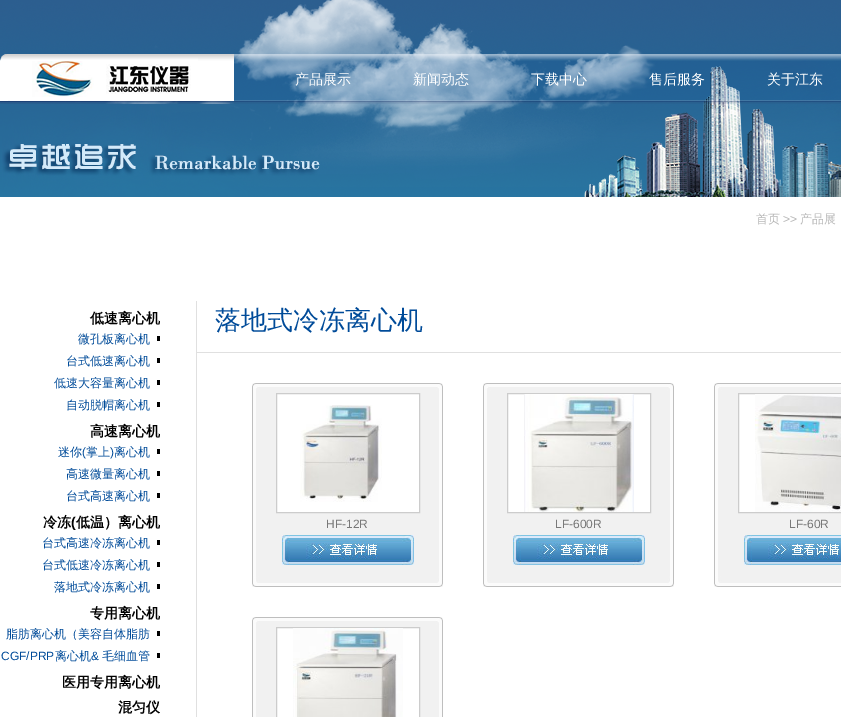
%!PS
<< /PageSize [841 717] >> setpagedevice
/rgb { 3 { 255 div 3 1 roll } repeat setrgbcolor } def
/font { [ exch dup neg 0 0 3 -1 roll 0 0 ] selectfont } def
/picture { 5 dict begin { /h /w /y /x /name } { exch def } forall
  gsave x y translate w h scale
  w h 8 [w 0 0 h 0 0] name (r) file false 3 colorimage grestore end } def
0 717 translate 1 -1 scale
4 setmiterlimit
255 255 255 rgb
0 0 841 717 rectfill
(img/1.rgb) 0 0 2 197 picture
(img/2.rgb) 2 0 839 197 picture
(img/3.rgb) 0 54 234 50 picture
(img/4.rgb) 0 54 230 50 picture
(img/5.rgb) 234 54 607 50 picture
[
  [196 301 1 416 224 224 224]
  [157 336 3 5 0 0 0]
  [157 358 3 5 0 0 0]
  [157 380 3 5 0 0 0]
  [157 402 3 5 0 0 0]
  [157 449 3 5 0 0 0]
  [157 471 3 5 0 0 0]
  [157 493 3 5 0 0 0]
  [157 540 3 5 0 0 0]
  [157 562 3 5 0 0 0]
  [157 584 3 5 0 0 0]
  [157 631 3 5 0 0 0]
  [157 653 3 5 0 0 0]
  [197 352 644 1 224 224 224]
] { aload pop rgb rectfill } forall
(img/6.rgb) 252 383 191 204 picture
255 255 255 rgb
276.5 393.5 moveto 419.5 393.5 lineto 419.5 512.5 lineto 276.5 512.5 lineto closepath gsave fill grestore
204 204 204 rgb
stroke
(img/7.rgb) 300 405 82 97 picture
(img/8.rgb) 282 535 132 30 picture
(img/6.rgb) 483 383 191 204 picture
255 255 255 rgb
507.5 393.5 moveto 650.5 393.5 lineto 650.5 512.5 lineto 507.5 512.5 lineto closepath gsave fill grestore
204 204 204 rgb
stroke
(img/9.rgb) 524 394 110 118 picture
(img/8.rgb) 513 535 132 30 picture
(img/10.rgb) 714 383 127 204 picture
255 255 255 rgb
739 394 16 118 rectfill
204 204 204 rgb
738.5 393.5 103 119 rectstroke
(img/11.rgb) 755 394 86 118 picture
(img/12.rgb) 744 535 97 30 picture
(img/13.rgb) 252 617 191 100 picture
255 255 255 rgb
276.5 627.5 moveto 419.5 627.5 lineto 419.5 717.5 lineto 276.5 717.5 lineto closepath gsave fill grestore
204 204 204 rgb
stroke
(img/14.rgb) 293 628 110 89 picture
/WenQuanYiZenHei-Medium 14 font
255 255 255 rgb
[
  [(产品展示) 295 84]
  [(新闻动态) 413 84]
  [(下载中心) 531 84]
  [(售后服务) 649 84]
  [(关于江东) 767 84]
] { aload pop moveto show } forall
/WenQuanYiZenHei-Medium 12 font
183 183 183 rgb
756 223 moveto (首页) show
/LiberationSans-Regular 12 font
783 223 moveto (>>) show
/WenQuanYiZenHei-Medium 12 font
800 223 moveto (产品展) show
/WenQuanYiZenHei-Bold 14 font
0 0 0 rgb
90 323 moveto (低速离心机) show
/WenQuanYiZenHei-Medium 12 font
0 75 153 rgb
[
  [(微孔板离心机) 78 343]
  [(台式低速离心机) 66 365]
  [(低速大容量离心机) 54 387]
  [(自动脱帽离心机) 66 409]
] { aload pop moveto show } forall
/WenQuanYiZenHei-Bold 14 font
0 0 0 rgb
90 436 moveto (高速离心机) show
/WenQuanYiZenHei-Medium 12 font
0 75 153 rgb
58 456 moveto (迷你) show
/LiberationSans-Regular 12 font
82 456 moveto (\() show
/WenQuanYiZenHei-Medium 12 font
86 456 moveto (掌上) show
/LiberationSans-Regular 12 font
110 456 moveto (\)) show
/WenQuanYiZenHei-Medium 12 font
[
  [(离心机) 114 456]
  [(高速微量离心机) 66 478]
  [(台式高速离心机) 66 500]
] { aload pop moveto show } forall
/WenQuanYiZenHei-Bold 14 font
0 0 0 rgb
43 527 moveto (冷冻) show
/LiberationSans-Bold 14 font
71 527 moveto (\() show
/WenQuanYiZenHei-Bold 14 font
76 527 moveto (低温）离心机) show
/WenQuanYiZenHei-Medium 12 font
0 75 153 rgb
[
  [(台式高速冷冻离心机) 42 547]
  [(台式低速冷冻离心机) 42 569]
  [(落地式冷冻离心机) 54 591]
] { aload pop moveto show } forall
/WenQuanYiZenHei-Bold 14 font
0 0 0 rgb
90 618 moveto (专用离心机) show
/WenQuanYiZenHei-Medium 12 font
0 75 153 rgb
6 638 moveto (脂肪离心机（美容自体脂肪) show
/LiberationSans-Regular 12 font
1 660 moveto (CGF/PRP) show
/WenQuanYiZenHei-Medium 12 font
55 660 moveto (离心机) show
/LiberationSans-Regular 12 font
91 660 moveto (&) show
/WenQuanYiZenHei-Medium 12 font
102 660 moveto (毛细血管) show
/WenQuanYiZenHei-Bold 14 font
0 0 0 rgb
62 687 moveto (医用专用离心机) show
118 712 moveto (混匀仪) show
/WenQuanYiZenHei-Medium 26 font
0 75 153 rgb
215 329 moveto (落地式冷冻离心机) show
/LiberationSans-Regular 12 font
121 121 121 rgb
[
  [(HF-12R) 326 528]
  [(LF-600R) 555 528]
  [(LF-60R) 789 528]
] { aload pop moveto show } forall
showpage
